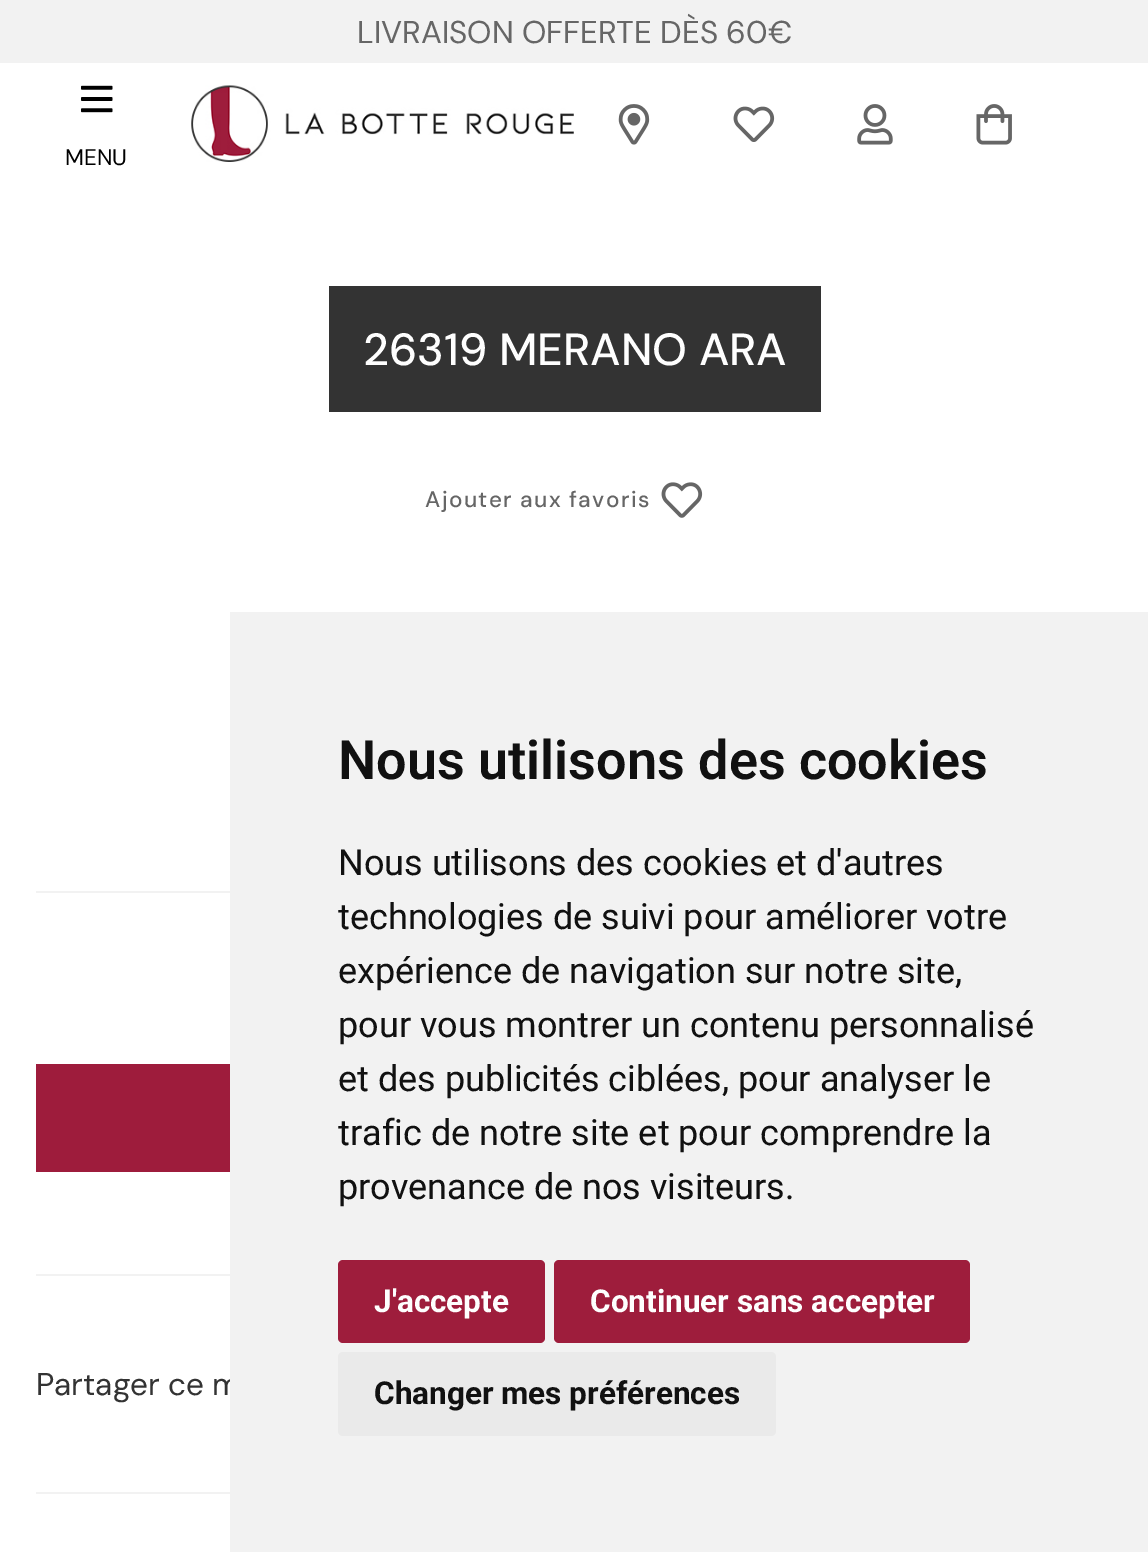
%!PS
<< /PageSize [1148 1552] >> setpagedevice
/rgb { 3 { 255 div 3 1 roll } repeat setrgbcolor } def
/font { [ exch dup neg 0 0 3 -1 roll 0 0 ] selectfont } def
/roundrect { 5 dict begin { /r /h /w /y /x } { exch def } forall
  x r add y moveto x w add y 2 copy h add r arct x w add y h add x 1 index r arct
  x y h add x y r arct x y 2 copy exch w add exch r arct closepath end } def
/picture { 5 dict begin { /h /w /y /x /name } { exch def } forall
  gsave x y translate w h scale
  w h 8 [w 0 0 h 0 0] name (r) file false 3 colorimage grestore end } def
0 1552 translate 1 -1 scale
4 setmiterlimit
255 255 255 rgb
0 0 1148 1552 rectfill
242 242 242 rgb
0 0 1148 63 rectfill
(img/1.rgb) 191 85 383 77 picture
(img/2.rgb) 618 104 32 41 picture
(img/3.rgb) 733 106 42 36 picture
(img/4.rgb) 857 104 36 41 picture
(img/5.rgb) 976 104 36 41 picture
(img/6.rgb) 81 85 32 28 picture
51 51 51 rgb
329 286 492 126 rectfill
(img/7.rgb) 661 482 42 36 picture
[
  [36 891 194 2 242 242 242]
  [36 1274 194 2 242 242 242]
  [36 1064 194 108 158 28 60]
  [36 1492 194 2 242 242 242]
] { aload pop rgb rectfill } forall
/DMSans-Regular 31.5 font
102 102 102 rgb
357 43 moveto (LIVRAISON OFFERTE DÈS 60€) show
/DMSans-Regular 22.5 font
0 0 0 rgb
65 165 moveto (MENU) show
/DMSans-Medium 45 font
254 254 254 rgb
363 365 moveto (26319 MERANO ARA) show
/DMSans-Medium 22.5 font
102 102 102 rgb
425 507 moveto 1.4 0 (Ajouter aux favoris) ashow
/DMSans-Regular 31.5 font
51 51 51 rgb
36 1395 moveto (Partager ce m) show
242 242 242 rgb
230 612 918 940 rectfill
/Roboto-SemiBold 54 font
17 17 17 rgb
338 779 moveto (Nous utilisons des cookies) show
/Roboto-Regular 36 font
[
  [(Nous utilisons des cookies et d'autres) 338 875]
  [(technologies de suivi pour améliorer votre) 338 929]
  [(expérience de navigation sur notre site,) 338 983]
  [(pour vous montrer un contenu personnalisé) 338 1037]
  [(et des publicités ciblées, pour analyser le) 338 1091]
  [(trafic de notre site et pour comprendre la) 338 1145]
  [(provenance de nos visiteurs.) 338 1199]
] { aload pop moveto show } forall
158 29 60 rgb
338 1260 207 83 5 roundrect fill
/Roboto-Bold 31.5 font
254 254 254 rgb
374 1312 moveto (J'accepte) show
158 29 60 rgb
554 1260 416 83 5 roundrect fill
254 254 254 rgb
590 1312 moveto (Continuer sans accepter) show
234 234 234 rgb
338 1352 438 84 5 roundrect fill
17 17 17 rgb
374 1404 moveto (Changer mes préférences) show
showpage
